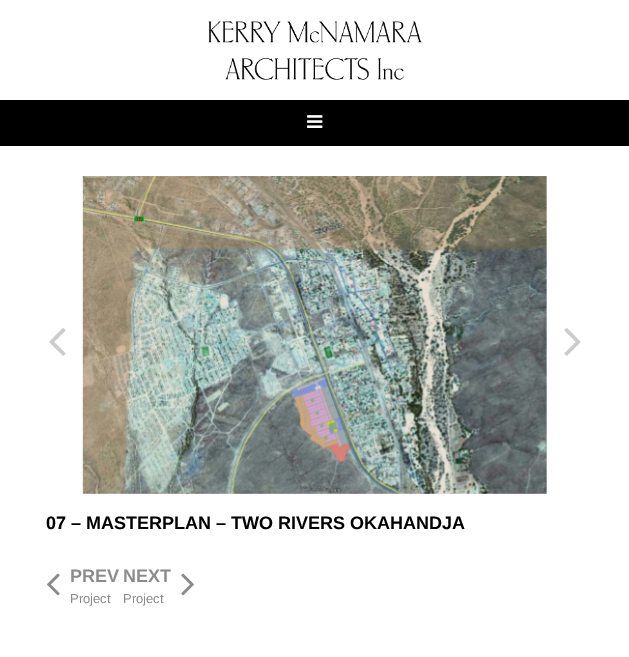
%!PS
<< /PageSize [629 657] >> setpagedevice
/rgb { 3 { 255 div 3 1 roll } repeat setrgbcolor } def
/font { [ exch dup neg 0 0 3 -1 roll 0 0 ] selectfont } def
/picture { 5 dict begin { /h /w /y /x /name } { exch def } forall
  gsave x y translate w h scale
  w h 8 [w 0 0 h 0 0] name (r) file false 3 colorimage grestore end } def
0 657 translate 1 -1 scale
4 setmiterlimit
255 255 255 rgb
0 0 629 657 rectfill
(img/1.rgb) 208 21 214 59 picture
0 0 0 rgb
0 100 629 46 rectfill
(img/2.rgb) 307 115 16 13 picture
(img/3.rgb) 82 176 465 318 picture
(img/4.rgb) 49 328 17 28 picture
(img/5.rgb) 564 328 17 28 picture
(img/6.rgb) 47 573 13 23 picture
(img/7.rgb) 181 573 13 23 picture
/LiberationSans-Bold 18 font
46 529 moveto (07 – MASTERPLAN – TWO RIVERS OKAHANDJA) show
139 139 139 rgb
70 582 moveto (PREV) show
/LiberationSans-Regular 13 font
70 603 moveto (Project) show
/LiberationSans-Bold 18 font
123 582 moveto (NEXT) show
/LiberationSans-Regular 13 font
123 603 moveto (Project) show
showpage
